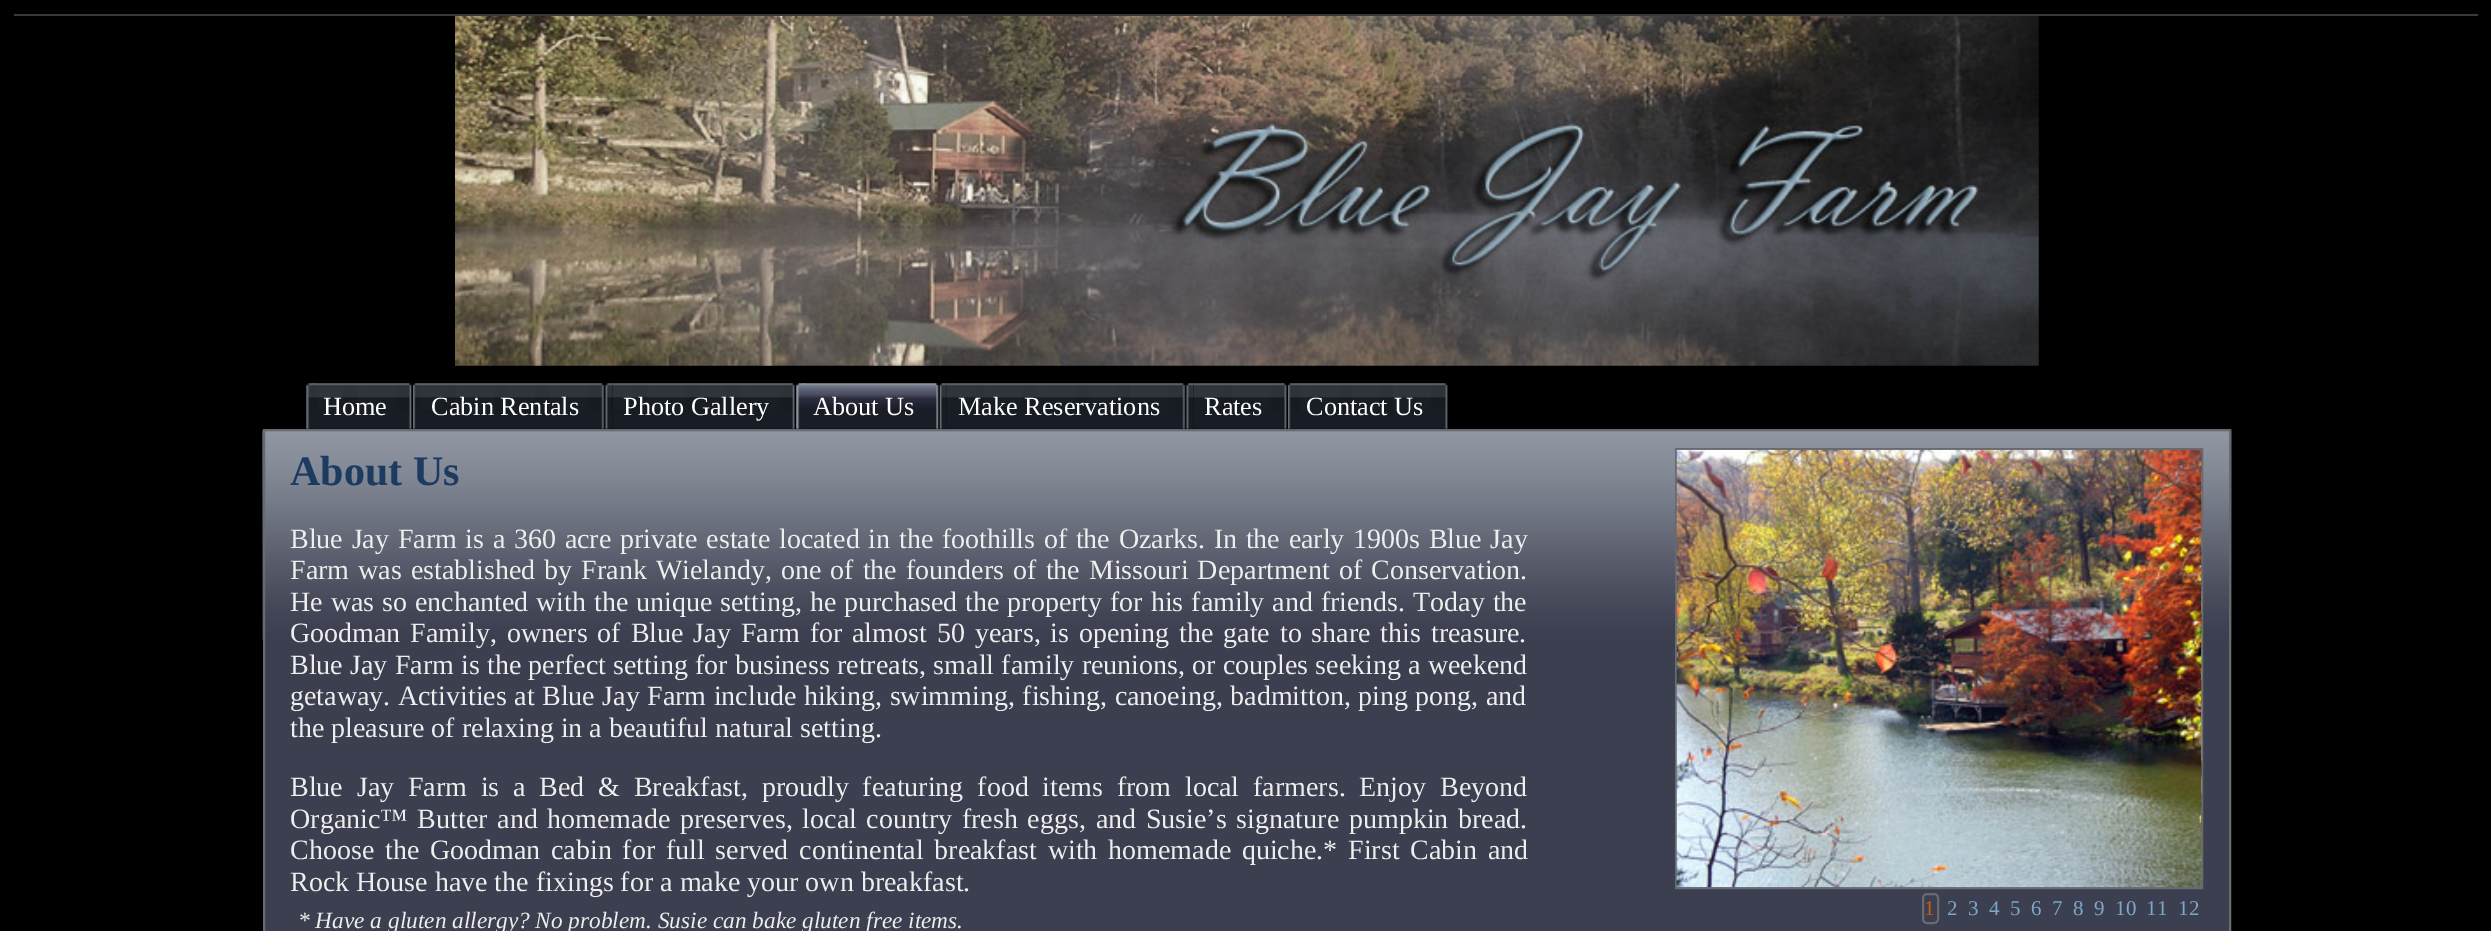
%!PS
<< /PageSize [2491 931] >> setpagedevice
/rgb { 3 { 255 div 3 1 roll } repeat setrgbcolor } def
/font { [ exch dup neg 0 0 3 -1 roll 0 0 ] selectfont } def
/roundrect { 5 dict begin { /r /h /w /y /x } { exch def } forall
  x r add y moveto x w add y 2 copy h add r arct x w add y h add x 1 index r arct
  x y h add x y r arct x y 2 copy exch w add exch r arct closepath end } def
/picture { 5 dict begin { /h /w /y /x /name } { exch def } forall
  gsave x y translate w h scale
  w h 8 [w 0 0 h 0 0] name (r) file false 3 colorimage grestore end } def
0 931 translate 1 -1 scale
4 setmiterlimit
0 0 0 rgb
0 0 2491 931 rectfill
57 57 57 rgb
14 14 2464 2 rectfill
(img/1.rgb) 455 16 1584 350 picture
(img/2.rgb) 306 383 9 46 picture
(img/3.rgb) 313 383 99 46 picture
(img/4.rgb) 413 383 7 46 picture
(img/5.rgb) 420 383 185 46 picture
(img/6.rgb) 605 383 8 46 picture
(img/7.rgb) 612 383 183 46 picture
(img/8.rgb) 796 383 9 46 picture
(img/9.rgb) 803 383 136 46 picture
(img/10.rgb) 939 383 8 46 picture
(img/11.rgb) 946 383 240 46 picture
(img/6.rgb) 1186 383 8 46 picture
(img/12.rgb) 1193 383 94 46 picture
(img/4.rgb) 1288 383 7 46 picture
(img/13.rgb) 1295 383 153 46 picture
60 63 80 rgb
265 640 1964 291 rectfill
(img/14.rgb) 262 430 1970 211 picture
103 106 113 rgb
2 setlinewidth
264 430 1966 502 rectstroke
1676 449 526 439 rectstroke
(img/15.rgb) 1676 449 526 439 picture
(img/16.rgb) 2201 450 1 437 picture
1923 894 15 29 4 roundrect stroke
/LiberationSerif-Regular 26.25 font
255 255 255 rgb
[
  [(Home) 323 415]
  [(Cabin Rentals) 431 415]
  [(Photo Gallery) 623 415]
  [(About Us) 813 415]
  [(Make Reservations) 958 415]
  [(Rates) 1204 415]
  [(Contact Us) 1306 415]
] { aload pop moveto show } forall
/LiberationSerif-Bold 42 font
29 58 97 rgb
290 485 moveto (About Us) show
/LiberationSerif-Regular 28 font
238 238 238 rgb
290 548 moveto 1.7 0 32 (Blue Jay Farm is a 360 acre private estate located in the foothills of the Ozarks. In the early 1900s Blue Jay) widthshow
290 579 moveto 2.1 0 32 (Farm was established by Frank Wielandy, one of the founders of the Missouri Department of Conservation.) widthshow
290 611 moveto 0.9 0 32 (He was so enchanted with the unique setting, he purchased the property for his family and friends.) widthshow
1413 611 moveto 1 0 32 (Today the) widthshow
290 642 moveto 2.9 0 32 (Goodman Family, owners of Blue Jay Farm for almost 50 years, is opening the gate to share this treasure.) widthshow
290 674 moveto 0.2 0 32 (Blue Jay Farm is the perfect setting for business retreats, small family reunions, or couples seeking a weekend) widthshow
290 705 moveto 0.5 0 32 (getaway. Activities at Blue Jay Farm include hiking, swimming, fishing, canoeing, badmitton, ping pong, and) widthshow
290 737 moveto (the pleasure of relaxing in a beautiful natural setting.) show
290 796 moveto 6.75 0 32 (Blue Jay Farm is a Bed & Breakfast, proudly featuring food items from local farmers. Enjoy Beyond) widthshow
290 828 moveto 2.75 0 32 (Organic™ Butter and homemade preserves, local country fresh eggs, and Susie’s signature pumpkin bread.) widthshow
290 859 moveto 3.75 0 32 (Choose the Goodman cabin for full served continental breakfast with homemade quiche.* First Cabin and) widthshow
290 891 moveto (Rock House have the fixings for a make your own breakfast.) show
/LiberationSerif-Italic 23.3 font
298 928 moveto (* Have a gluten allergy? No problem. Susie can bake gluten free items.) show
/LiberationSerif-Regular 21 font
201 96 3 rgb
1924 915 moveto (1) show
125 168 201 rgb
[
  [(2) 1947 915]
  [(3) 1968 915]
  [(4) 1989 915]
  [(5) 2010 915]
  [(6) 2031 915]
  [(7) 2052 915]
  [(8) 2073 915]
  [(9) 2094 915]
  [(10) 2115 915]
  [(11) 2146 915]
  [(12) 2178 915]
] { aload pop moveto show } forall
showpage
